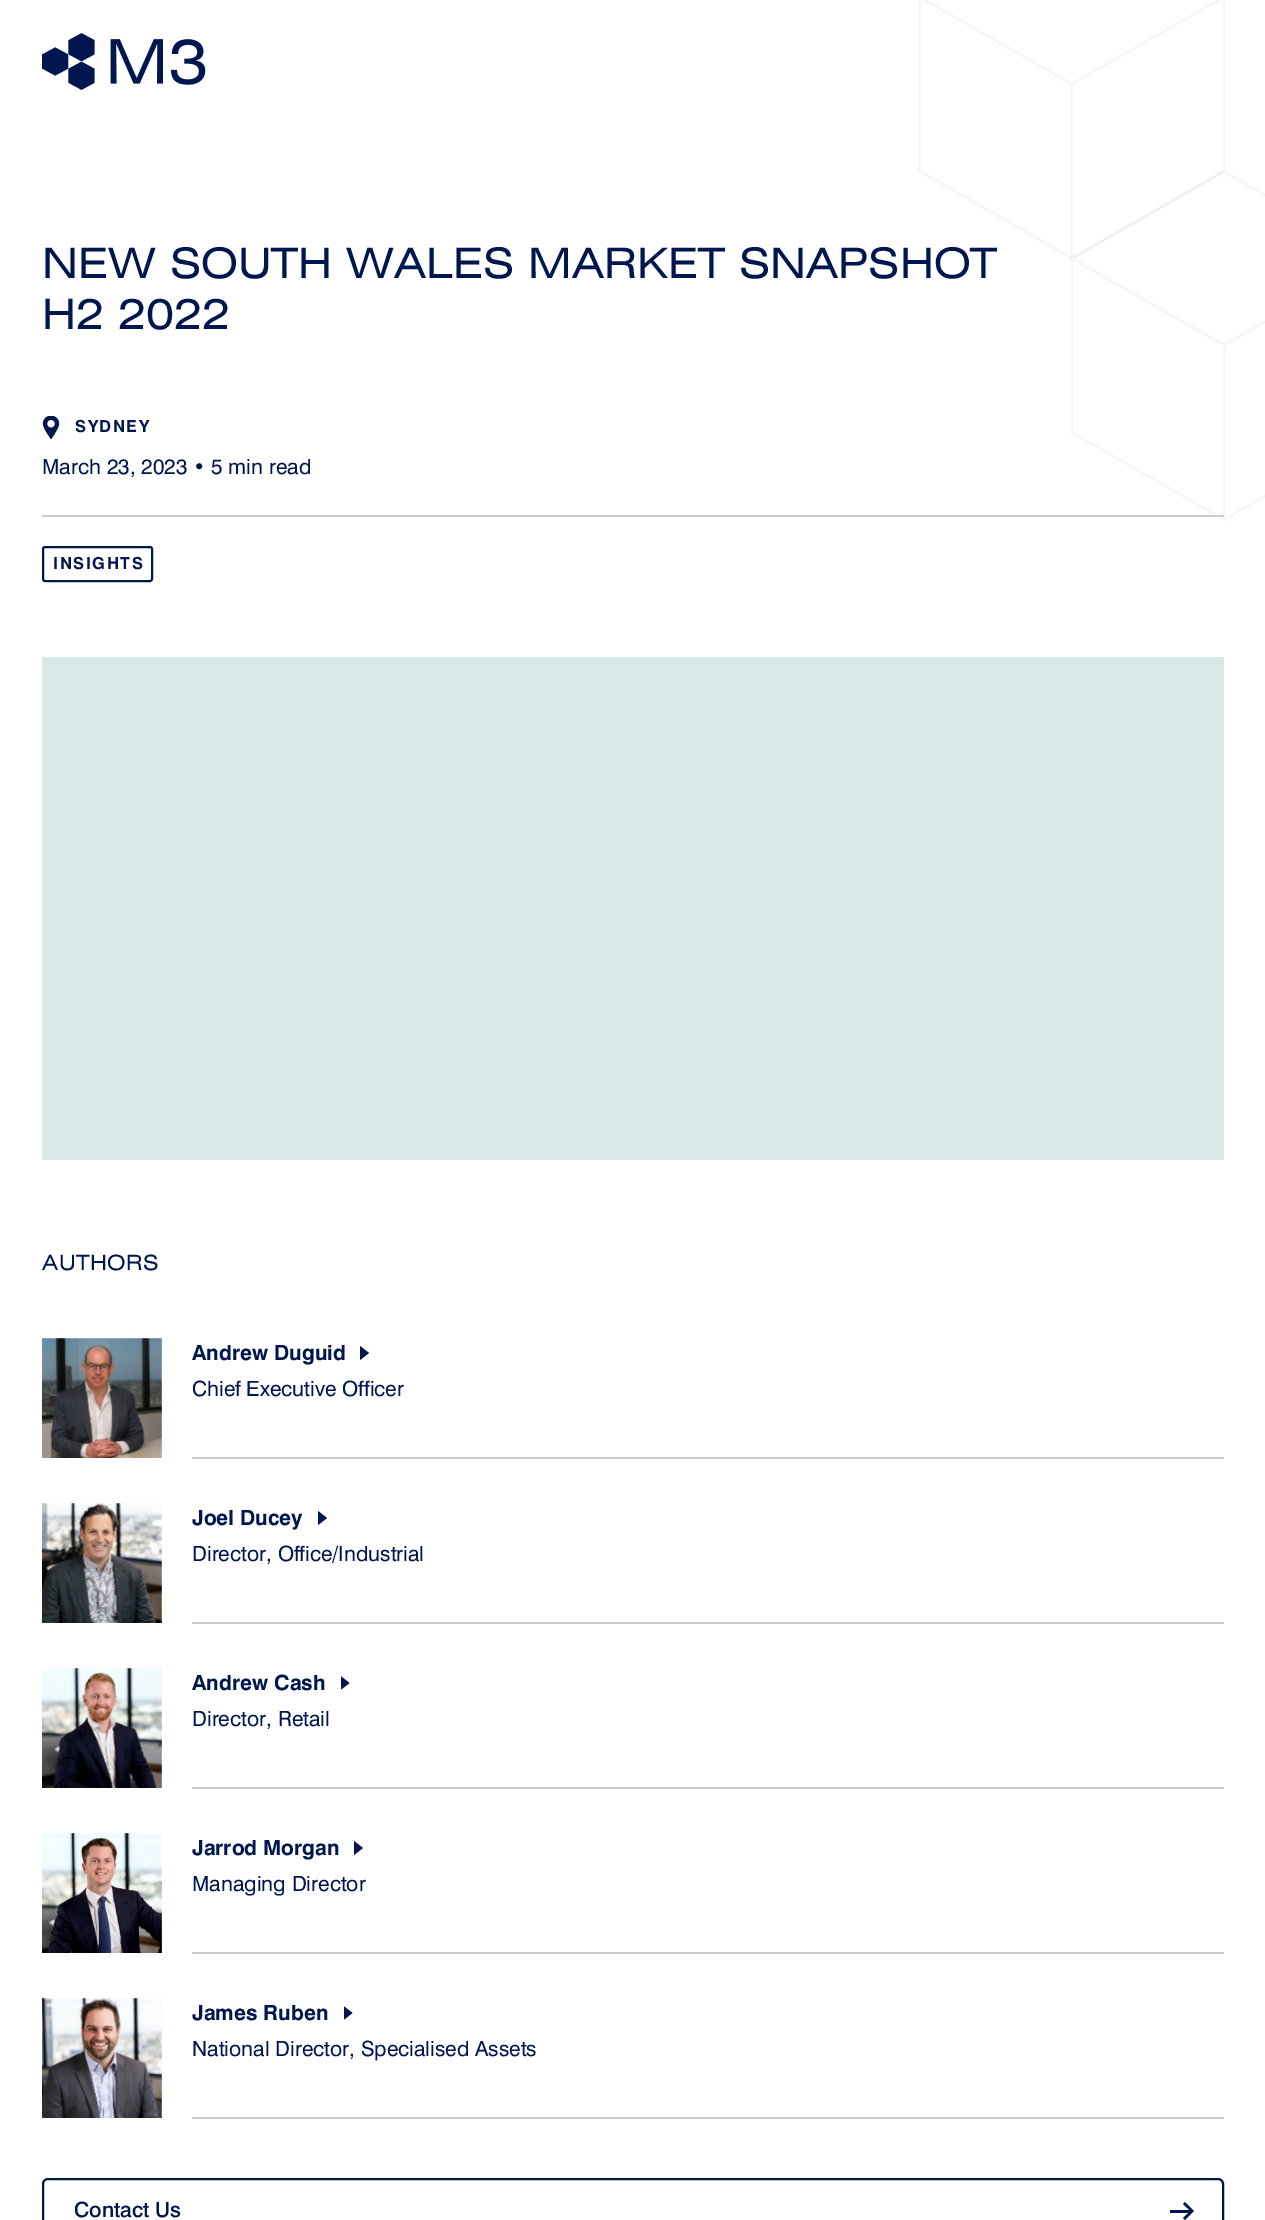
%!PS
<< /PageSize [1265 2220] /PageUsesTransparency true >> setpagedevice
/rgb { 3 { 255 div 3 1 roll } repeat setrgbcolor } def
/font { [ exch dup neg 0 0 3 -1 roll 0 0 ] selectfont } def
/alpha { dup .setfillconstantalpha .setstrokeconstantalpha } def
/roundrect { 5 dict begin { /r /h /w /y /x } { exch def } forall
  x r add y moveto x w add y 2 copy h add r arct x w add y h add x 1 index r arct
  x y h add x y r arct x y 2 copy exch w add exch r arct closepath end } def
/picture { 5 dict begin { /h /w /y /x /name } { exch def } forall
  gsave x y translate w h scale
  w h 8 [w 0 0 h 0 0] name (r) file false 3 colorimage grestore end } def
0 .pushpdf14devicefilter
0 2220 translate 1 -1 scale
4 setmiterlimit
255 255 255 rgb
0 0 1265 2220 rectfill
(img/1.rgb) 42 33 164 57 picture
245 245 245 rgb
2.1 setlinewidth
1224 345 moveto 1224 519.5 lineto 1072 432.5 lineto 1072 258.5 lineto 1224 345 moveto 1072 258.5 lineto 1224 345 moveto 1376.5 258.5 lineto 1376.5 258.5 moveto 1224 171.5 lineto 1072 258.5 lineto 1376.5 258.5 moveto 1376.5 432.5 lineto 1224 519.5 lineto 1072 258.5 moveto 1224 345.5 lineto stroke
0.5 alpha
235 235 235 rgb
1071.5 84 moveto 1071.5 258 lineto 919.5 171 lineto 919.5 -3 lineto 1071.5 84 moveto 919.5 -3 lineto 1071.5 84 moveto 1224 -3 lineto 1224 -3 moveto 1071.5 -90 lineto 919.5 -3 lineto 1224 -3 moveto 1224 171 lineto 1072 258 lineto 919.5 -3 moveto 1072 84 lineto stroke
1 alpha
204 204 204 rgb
42 515 1182 2 rectfill
(img/2.rgb) 42 416 18 24 picture
0 22 78 rgb
2 setlinewidth
43 547 109 34 2 roundrect stroke
216 232 232 rgb
42 657 1182 503 rectfill
(img/3.rgb) 42 1338 120 120 picture
204 204 204 rgb
192 1457 1032 2 rectfill
0 22 78 rgb
369 1353 moveto 360 1360 lineto 360 1346 lineto closepath fill
(img/4.rgb) 42 1503 120 120 picture
204 204 204 rgb
192 1622 1032 2 rectfill
0 22 78 rgb
327 1518 moveto 318 1525 lineto 318 1511 lineto closepath fill
(img/5.rgb) 42 1668 120 120 picture
204 204 204 rgb
192 1787 1032 2 rectfill
gsave
341 1676 9 15 rectclip
0 22 78 rgb
349.5 1683 moveto 340.5 1690 lineto 340.5 1676 lineto closepath fill
grestore
(img/6.rgb) 42 1833 120 120 picture
192 1952 1032 2 rectfill
0 22 78 rgb
363 1848 moveto 354 1855 lineto 354 1841 lineto closepath fill
(img/7.rgb) 42 1998 120 120 picture
204 204 204 rgb
192 2117 1032 2 rectfill
gsave
344 2006 9 15 rectclip
0 22 78 rgb
352.5 2013 moveto 343.5 2020 lineto 343.5 2006 lineto closepath fill
grestore
0 22 78 rgb
43 2179 1180 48 5 roundrect stroke
1170 2210 21 3 rectfill
1185 2220 moveto 1183 2218 lineto 1190.5 2211 lineto 1183 2204 lineto 1185 2202 lineto 1194 2211 lineto closepath fill
/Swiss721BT-Regular 42 font
42 278 moveto (NEW SOUTH WALES MARKET SNAPSHOT) show
42 329 moveto (H2 2022) show
/Swiss721BT-Bold 16.5 font
75 432 moveto 1.5 0 (SYDNEY) ashow
/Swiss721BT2-Regular 21 font
42 474 moveto (March 23, 2023 • 5 min read) show
/Swiss721BT-Bold 16.5 font
53 569 moveto 1.5 0 (INSIGHTS) ashow
/Swiss721BT-Regular 21 font
42 1270 moveto 0.5 0 (AUTHORS) ashow
/Swiss721BT-Bold 21 font
192 1360 moveto (Andrew Duguid) show
/Swiss721BT2-Regular 21 font
192 1396 moveto (Chief Executive Officer) show
/Swiss721BT-Bold 21 font
192 1525 moveto (Joel Ducey) show
/Swiss721BT2-Regular 21 font
192 1561 moveto (Director, Office/Industrial) show
/Swiss721BT-Bold 21 font
192 1690 moveto (Andrew Cash) show
/Swiss721BT2-Regular 21 font
192 1726 moveto (Director, Retail) show
/Swiss721BT-Bold 21 font
192 1855 moveto (Jarrod Morgan) show
/Swiss721BT2-Regular 21 font
192 1891 moveto (Managing Director) show
/Swiss721BT-Bold 21 font
192 2020 moveto (James Ruben) show
/Swiss721BT2-Regular 21 font
192 2056 moveto (National Director, Specialised Assets) show
/Swiss721BT-Medium 21 font
74 2217 moveto (Contact Us) show
.poppdf14devicefilter showpage
